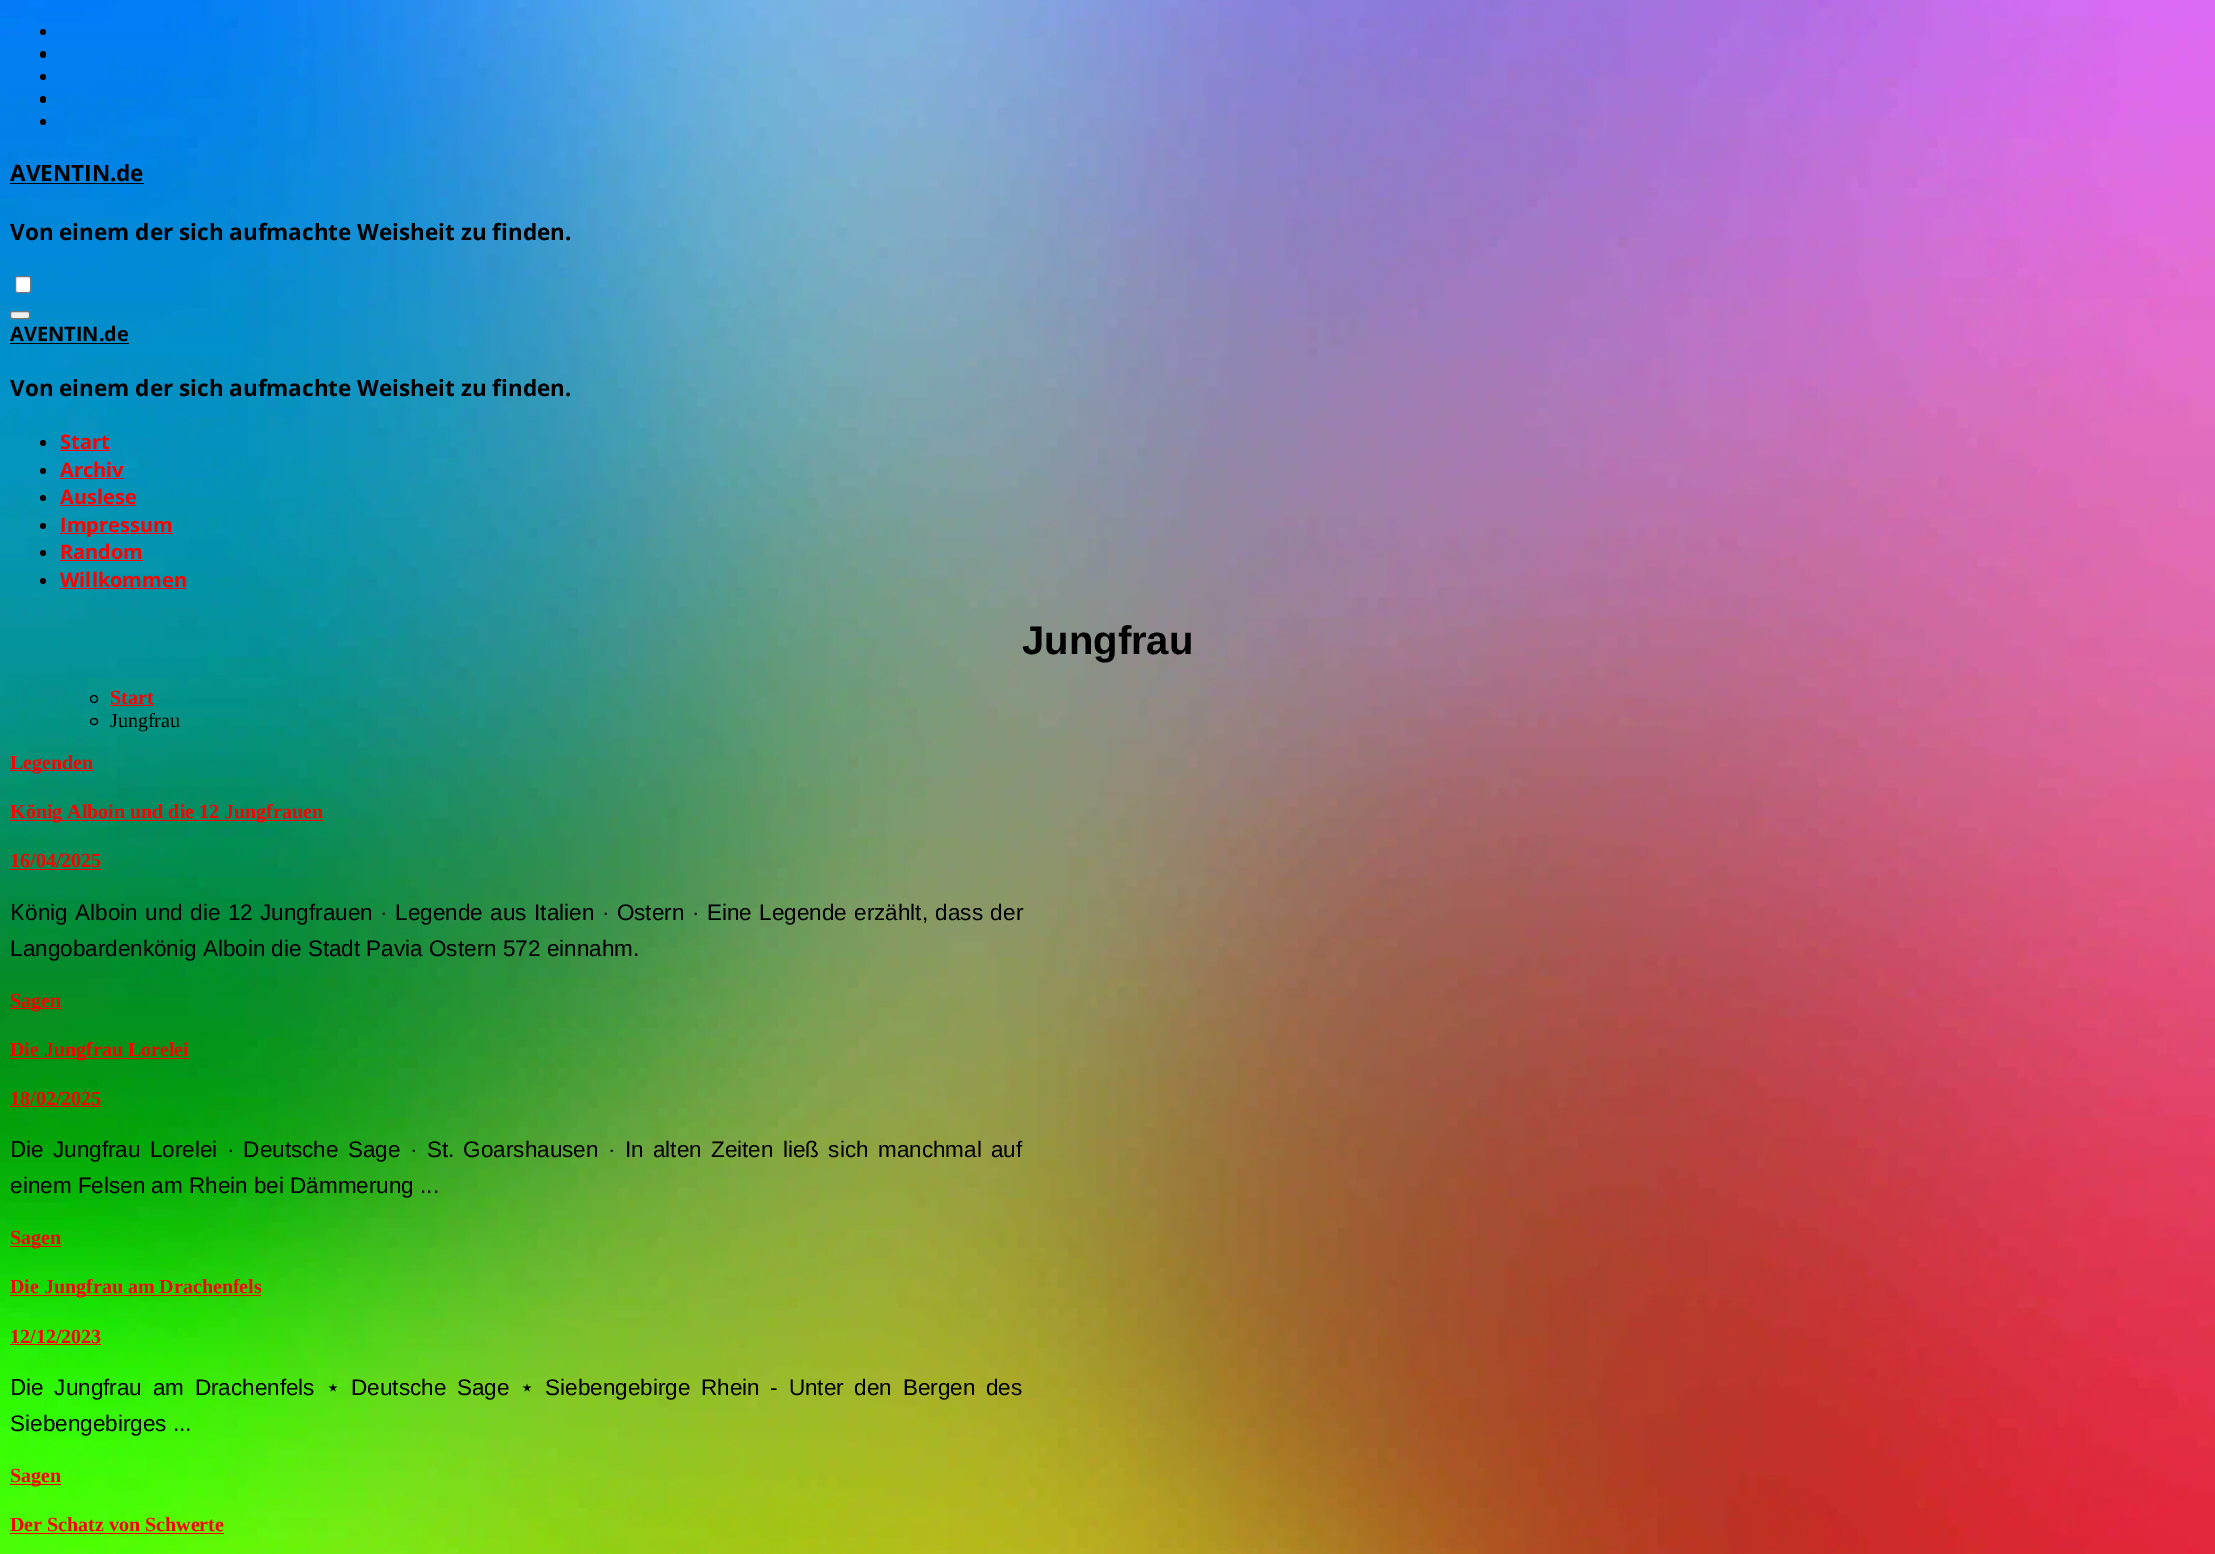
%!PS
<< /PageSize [2215 1554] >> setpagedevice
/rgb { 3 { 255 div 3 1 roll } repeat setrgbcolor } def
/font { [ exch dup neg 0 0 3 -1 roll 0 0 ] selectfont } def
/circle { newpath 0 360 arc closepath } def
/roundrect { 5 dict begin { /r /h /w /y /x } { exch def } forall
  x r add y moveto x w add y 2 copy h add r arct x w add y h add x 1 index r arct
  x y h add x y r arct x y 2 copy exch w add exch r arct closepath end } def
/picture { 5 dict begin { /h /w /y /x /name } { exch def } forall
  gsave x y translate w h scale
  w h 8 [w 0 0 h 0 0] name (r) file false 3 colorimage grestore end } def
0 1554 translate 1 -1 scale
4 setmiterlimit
255 255 255 rgb
0 0 2215 1554 rectfill
(img/1.rgb) 0 0 2215 1554 picture
0 0 0 rgb
43 32 3 circle fill
40 51 6 7 3 roundrect fill
43 77 3 circle fill
40 96 6 7 3 roundrect fill
43 122 3 circle fill
10 183 134 1 rectfill
255 255 255 rgb
15.5 276.5 15 16 2 roundrect gsave fill grestore
118 118 118 rgb
stroke
239 239 239 rgb
10.5 311.5 19 7 2 roundrect gsave fill grestore
118 118 118 rgb
stroke
0 0 0 rgb
10 343 119 1 rectfill
43 443 3 circle fill
255 0 0 rgb
60 450 50 1 rectfill
0 0 0 rgb
43 471 3 circle fill
255 0 0 rgb
60 478 64 1 rectfill
0 0 0 rgb
43 498 3 circle fill
255 0 0 rgb
60 505 76 1 rectfill
0 0 0 rgb
43 526 3 circle fill
255 0 0 rgb
60 533 113 1 rectfill
0 0 0 rgb
43 553 3 circle fill
255 0 0 rgb
60 560 83 1 rectfill
0 0 0 rgb
43 581 3 circle fill
255 0 0 rgb
60 588 126 1 rectfill
0 0 0 rgb
94 699 3.5 circle stroke
255 0 0 rgb
110 705 44 1 rectfill
0 0 0 rgb
90.5 718.5 7 6 3 roundrect stroke
[
  [10 770 84 1 255 0 0]
  [10 820 313 1 255 0 0]
  [10 869 91 1 255 0 0]
  [10 1008 51 1 255 0 0]
  [10 1058 179 1 255 0 0]
  [10 1106 91 1 255 0 0]
  [10 1246 51 1 255 0 0]
  [10 1295 251 1 255 0 0]
  [10 1344 91 1 255 0 0]
  [10 1484 51 1 255 0 0]
  [10 1533 214 1 255 0 0]
] { aload pop rgb rectfill } forall
/OpenSans-Bold 22.5 font
0 0 0 rgb
10 181 moveto (AVENTIN.de) show
10 240 moveto (Von einem der sich aufmachte Weisheit zu finden.) show
/OpenSans-Bold 20 font
10 341 moveto (AVENTIN.de) show
/OpenSans-Bold 22.5 font
10 396 moveto (Von einem der sich aufmachte Weisheit zu finden.) show
/OpenSans-Bold 20 font
255 0 0 rgb
[
  [(Start) 60 449]
  [(Archiv) 60 477]
  [(Auslese) 60 504]
  [(Impressum) 60 532]
  [(Random) 60 559]
  [(Willkommen) 60 587]
] { aload pop moveto show } forall
/LiberationSans-Bold 40 font
0 0 0 rgb
1022 654 moveto (Jungfrau) show
/LiberationSerif-Bold 20 font
255 0 0 rgb
110 704 moveto (Start) show
/LiberationSerif-Regular 20 font
0 0 0 rgb
110 727 moveto (Jungfrau) show
/LiberationSerif-Bold 20 font
255 0 0 rgb
[
  [(Legenden) 10 769]
  [(König Alboin und die 12 Jungfrauen) 10 818]
  [(16/04/2025) 10 867]
] { aload pop moveto show } forall
/NotoSans-Regular 22.5 font
0 0 0 rgb
10 920 moveto (K) show
/LiberationSans-Regular 22.5 font
25 920 moveto 1.25 0 32 (önig Alboin und die 12 Jungfrauen · Legende aus Italien · Ostern · Eine Legende erzählt, dass der) widthshow
10 956 moveto (Langobardenkönig Alboin die Stadt Pavia Ostern 572 einnahm.) show
/LiberationSerif-Bold 20 font
255 0 0 rgb
[
  [(Sagen) 10 1007]
  [(Die Jungfrau Lorelei) 10 1056]
  [(18/02/2025) 10 1105]
] { aload pop moveto show } forall
/NotoSans-Regular 22.5 font
0 0 0 rgb
10 1157 moveto (D) show
/LiberationSans-Regular 22.5 font
26 1157 moveto 3.1 0 32 (ie Jungfrau Lorelei · Deutsche Sage · St. Goarshausen · In alten Zeiten ließ sich manchmal auf) widthshow
10 1193 moveto (einem Felsen am Rhein bei Dämmerung ...) show
/LiberationSerif-Bold 20 font
255 0 0 rgb
[
  [(Sagen) 10 1244]
  [(Die Jungfrau am Drachenfels) 10 1293]
  [(12/12/2023) 10 1343]
] { aload pop moveto show } forall
/NotoSans-Regular 22.5 font
0 0 0 rgb
10 1395 moveto (D) show
/LiberationSans-Regular 22.5 font
26 1395 moveto 4.5 0 32 (ie Jungfrau am Drachenfels) widthshow
/DejaVuSans-Regular 22.5 font
326 1395 moveto (⋆) show
/LiberationSans-Regular 22.5 font
351 1395 moveto 4.5 0 32 (Deutsche Sage) widthshow
/DejaVuSans-Regular 22.5 font
520 1395 moveto (⋆) show
/LiberationSans-Regular 22.5 font
545 1395 moveto 4.5 0 32 (Siebengebirge Rhein - Unter den Bergen des) widthshow
10 1431 moveto (Siebengebirges ...) show
/LiberationSerif-Bold 20 font
255 0 0 rgb
10 1482 moveto (Sagen) show
10 1531 moveto (Der Schatz von Schwerte) show
showpage
